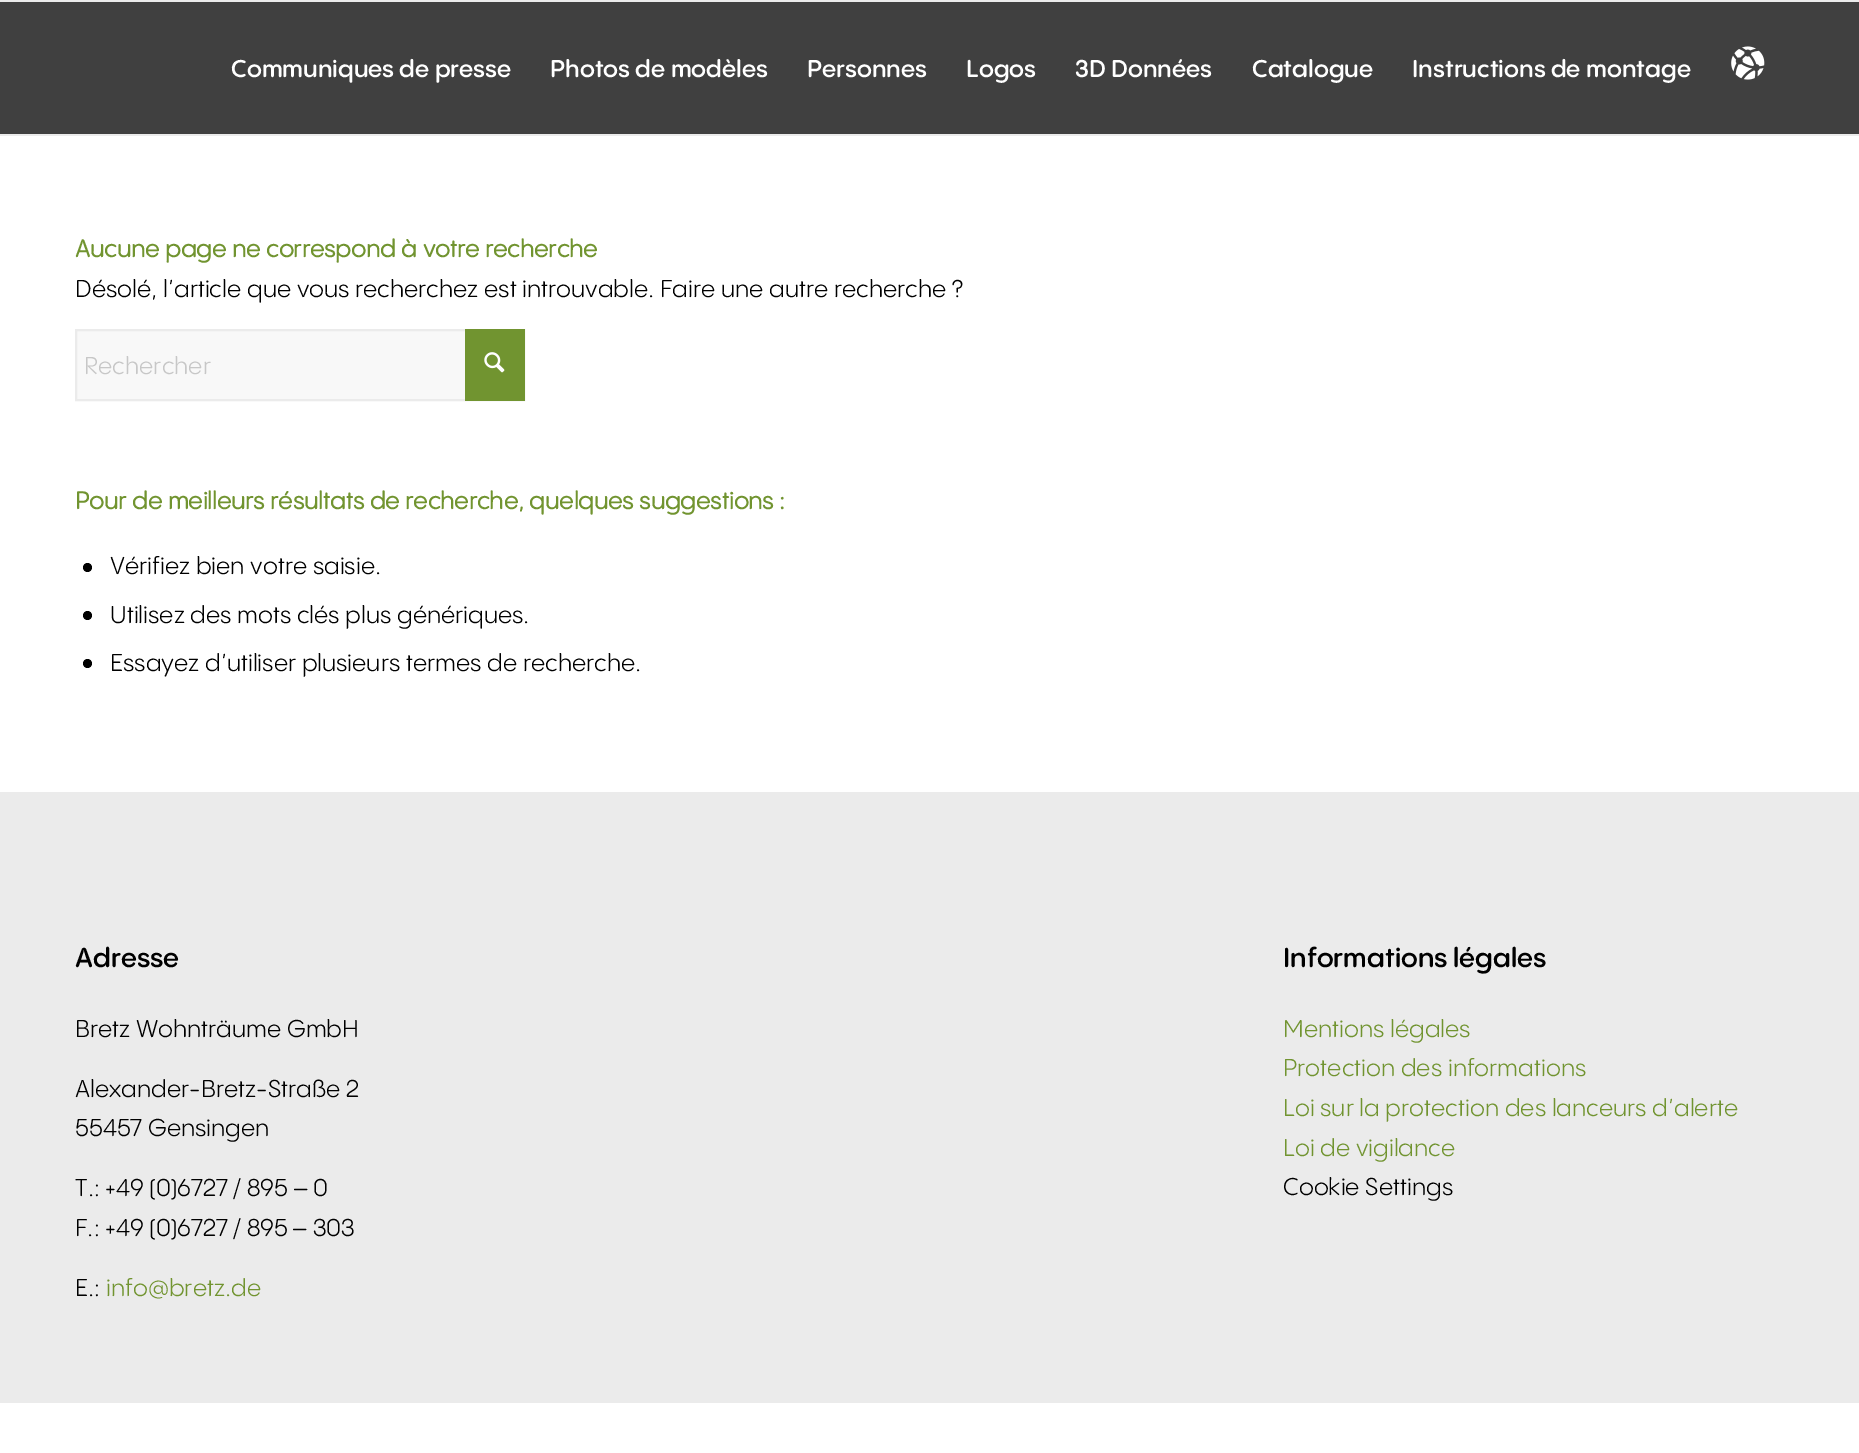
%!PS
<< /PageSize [1859 1453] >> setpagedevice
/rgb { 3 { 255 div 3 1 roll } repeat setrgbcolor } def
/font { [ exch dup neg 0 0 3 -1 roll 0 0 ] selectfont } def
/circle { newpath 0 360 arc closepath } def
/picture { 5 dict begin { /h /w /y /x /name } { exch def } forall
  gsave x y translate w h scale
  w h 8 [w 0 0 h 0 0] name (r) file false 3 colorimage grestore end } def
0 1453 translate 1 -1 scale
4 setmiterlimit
255 255 255 rgb
0 0 1859 1453 rectfill
[
  [0 2 1859 132 64 64 64]
  [0 0 1859 2 235 235 235]
  [0 134 1859 2 235 235 235]
] { aload pop rgb rectfill } forall
(img/1.rgb) 1731 46 34 34 picture
248 248 248 rgb
77 331 388 68 rectfill
235 235 235 rgb
2 setlinewidth
76 330 448 70 rectstroke
113 148 48 rgb
465 329 60 72 rectfill
(img/2.rgb) 484 352 21 21 picture
0 0 0 rgb
87.5 567.5 4.5 circle fill
87.5 615.5 4.5 circle fill
87.5 663.5 4.5 circle fill
235 235 235 rgb
0 792 1859 611 rectfill
/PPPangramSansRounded-SemiBold 24 font
255 255 255 rgb
[
  [(Communiques de presse) 231 77]
  [(Photos de modèles) 550 77]
  [(Personnes) 807 77]
  [(Logos) 966 77]
  [(3D Données) 1075 77]
  [(Catalogue) 1252 77]
  [(Instructions de montage) 1412 77]
] { aload pop moveto show } forall
/PPPangramSansRounded-Bold 24 font
113 148 48 rgb
75 257 moveto (Aucune page ne correspond à votre recherche) show
/PPPangramSansRounded-Regular 24 font
0 0 0 rgb
75 297 moveto (Désolé, l’article que vous recherchez est introuvable. Faire une autre recherche ?) show
199 199 199 rgb
84 374 moveto (Rechercher) show
/PPPangramSansRounded-Bold 24 font
113 148 48 rgb
75 509 moveto (Pour de meilleurs résultats de recherche, quelques suggestions :) show
/PPPangramSansRounded-Regular 24 font
0 0 0 rgb
[
  [(Vérifiez bien votre saisie.) 110 574]
  [(Utilisez des mots clés plus génériques.) 110 623]
  [(Essayez d’utiliser plusieurs termes de recherche.) 110 671]
] { aload pop moveto show } forall
/PPPangramSansRounded-SemiBold 27 font
75 967 moveto (Adresse) show
/PPPangramSansRounded-Regular 24 font
[
  [(Bretz Wohnträume GmbH) 75 1037]
  [(Alexander-Bretz-Straße 2) 75 1097]
  [(55457 Gensingen) 75 1136]
  [(T.: +49 \(0\)6727 / 895 – 0) 75 1196]
  [(F.: +49 \(0\)6727 / 895 – 303) 75 1236]
  [(E.:) 75 1296]
] { aload pop moveto show } forall
113 148 48 rgb
106 1296 moveto (info@bretz.de) show
/PPPangramSansRounded-SemiBold 27 font
0 0 0 rgb
1283 967 moveto (Informations légales) show
/PPPangramSansRounded-Regular 24 font
113 148 48 rgb
[
  [(Mentions légales) 1283 1037]
  [(Protection des informations) 1283 1076]
  [(Loi sur la protection des lanceurs d’alerte) 1283 1116]
  [(Loi de vigilance) 1283 1156]
] { aload pop moveto show } forall
0 0 0 rgb
1283 1195 moveto (Cookie Settings) show
showpage
